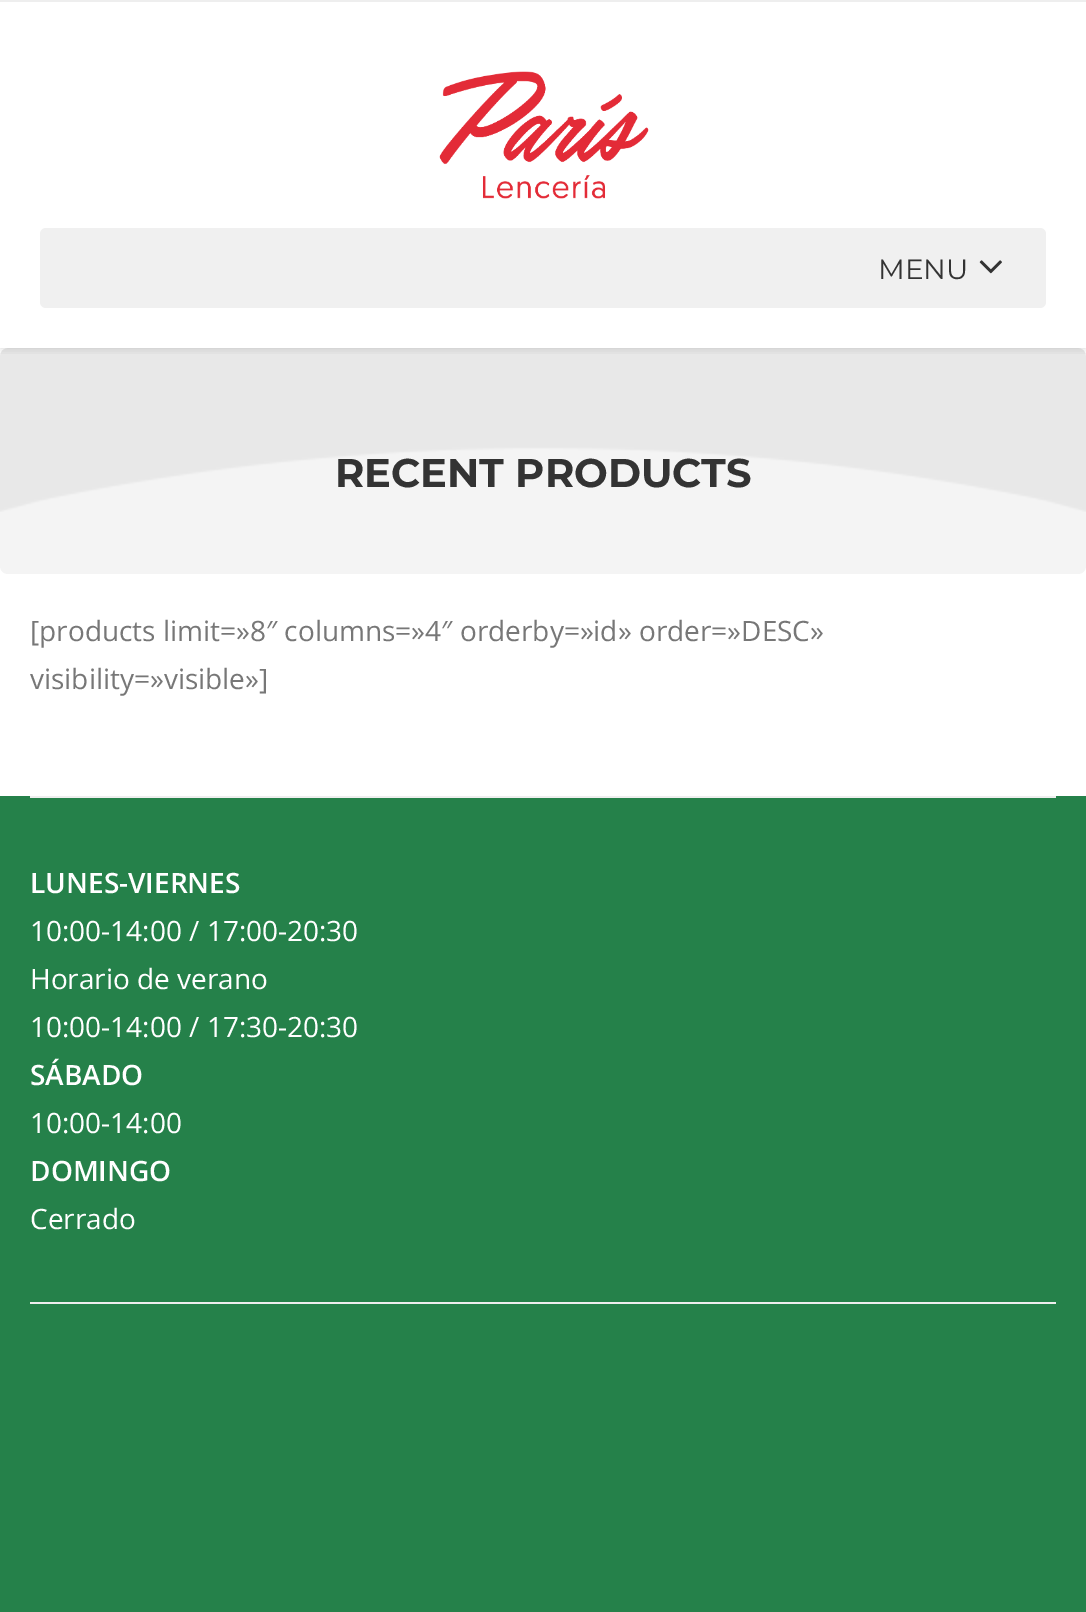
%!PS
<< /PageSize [1086 1612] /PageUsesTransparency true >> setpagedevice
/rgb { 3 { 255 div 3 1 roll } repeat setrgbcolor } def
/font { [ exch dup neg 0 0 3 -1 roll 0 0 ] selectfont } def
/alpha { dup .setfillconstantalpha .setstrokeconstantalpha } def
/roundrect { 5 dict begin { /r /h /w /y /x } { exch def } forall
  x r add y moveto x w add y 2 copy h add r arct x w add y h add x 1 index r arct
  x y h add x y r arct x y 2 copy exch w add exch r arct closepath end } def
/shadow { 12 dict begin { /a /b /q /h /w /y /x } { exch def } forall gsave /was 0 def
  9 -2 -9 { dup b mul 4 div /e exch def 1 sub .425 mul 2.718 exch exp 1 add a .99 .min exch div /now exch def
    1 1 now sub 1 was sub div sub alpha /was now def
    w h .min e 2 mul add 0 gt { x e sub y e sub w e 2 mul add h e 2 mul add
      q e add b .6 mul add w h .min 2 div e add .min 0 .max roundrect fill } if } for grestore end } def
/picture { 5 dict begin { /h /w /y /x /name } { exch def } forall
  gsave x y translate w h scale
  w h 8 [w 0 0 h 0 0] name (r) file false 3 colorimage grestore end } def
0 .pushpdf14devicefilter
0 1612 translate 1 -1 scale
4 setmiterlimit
255 255 255 rgb
0 0 1086 1612 rectfill
244 244 244 rgb
0 348 1086 226 8 roundrect fill
(img/3.rgb) 0 348 1086 164 picture
gsave
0 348 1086 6 rectclip
0 0 0 rgb
0 0 1086 348 0 5 0.15 shadow
grestore
238 238 238 rgb
0 0 1086 2 rectfill
(img/1.rgb) 439 71 210 128 picture
240 240 240 rgb
40 228 1006 80 6 roundrect fill
(img/2.rgb) 979 260 23 14 picture
[
  [0 796 1086 816 37 129 74]
  [30 796 1026 2 238 238 238]
  [30 1302 1026 2 238 238 238]
] { aload pop rgb rectfill } forall
/Montserrat-Regular 28 font
51 51 51 rgb
878 279 moveto (MENU) show
/Montserrat-Bold 40 font
335 487 moveto (RECENT PRODUCTS) show
/OpenSans-Regular 28 font
119 119 119 rgb
30 641 moveto ([products limit=»8″ columns=»4″ orderby=»id» order=»DESC») show
30 689 moveto (visibility=»visible»]) show
/OpenSans-SemiBold 28 font
255 255 255 rgb
30 893 moveto (LUNES-VIERNES) show
/OpenSans-Regular 28 font
[
  [(10:00-14:00 / 17:00-20:30) 30 941]
  [(Horario de verano) 30 989]
  [(10:00-14:00 / 17:30-20:30) 30 1037]
] { aload pop moveto show } forall
/OpenSans-SemiBold 28 font
30 1085 moveto (SÁBADO) show
/OpenSans-Regular 28 font
30 1133 moveto (10:00-14:00) show
/OpenSans-SemiBold 28 font
30 1181 moveto (DOMINGO) show
/OpenSans-Regular 28 font
30 1229 moveto (Cerrado) show
.poppdf14devicefilter showpage
